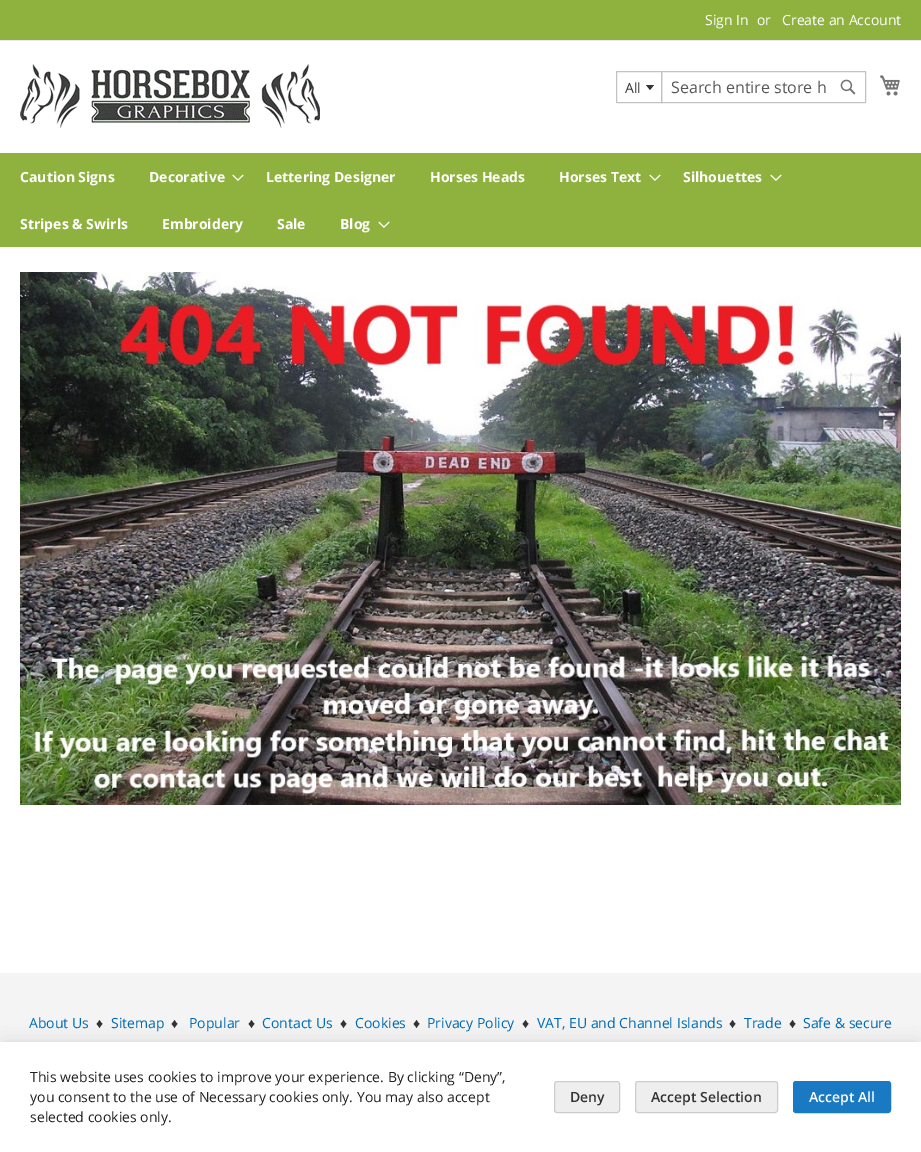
%!PS
<< /PageSize [921 1152] /PageUsesTransparency true >> setpagedevice
/rgb { 3 { 255 div 3 1 roll } repeat setrgbcolor } def
/font { [ exch dup neg 0 0 3 -1 roll 0 0 ] selectfont } def
/alpha { dup .setfillconstantalpha .setstrokeconstantalpha } def
/roundrect { 5 dict begin { /r /h /w /y /x } { exch def } forall
  x r add y moveto x w add y 2 copy h add r arct x w add y h add x 1 index r arct
  x y h add x y r arct x y 2 copy exch w add exch r arct closepath end } def
/shadow { 12 dict begin { /a /b /q /h /w /y /x } { exch def } forall gsave /was 0 def
  9 -2 -9 { dup b mul 4 div /e exch def 1 sub .425 mul 2.718 exch exp 1 add a .99 .min exch div /now exch def
    1 1 now sub 1 was sub div sub alpha /was now def
    w h .min e 2 mul add 0 gt { x e sub y e sub w e 2 mul add h e 2 mul add
      q e add b .6 mul add w h .min 2 div e add .min 0 .max roundrect fill } if } for grestore end } def
/picture { 5 dict begin { /h /w /y /x /name } { exch def } forall
  gsave x y translate w h scale
  w h 8 [w 0 0 h 0 0] name (r) file false 3 colorimage grestore end } def
0 .pushpdf14devicefilter
0 1152 translate 1 -1 scale
4 setmiterlimit
255 255 255 rgb
0 0 921 1152 rectfill
143 178 62 rgb
0 0 921 40 rectfill
232 232 232 rgb
0 40 921 1 rectfill
(img/1.rgb) 20 64 300 64 picture
194 194 194 rgb
661.5 71.5 moveto 865 71.5 lineto 865.5 71.5 865.5 71.5 865.5 72 curveto 865.5 102 lineto 865.5 102.5 865.5 102.5 865 102.5 curveto 661.5 102.5 lineto closepath stroke
255 255 255 rgb
617 71.5 moveto 661.5 71.5 lineto 661.5 102.5 lineto 617 102.5 lineto 616.5 102.5 616.5 102.5 616.5 102 curveto 616.5 72 lineto 616.5 71.5 616.5 71.5 617 71.5 curveto closepath gsave fill grestore
194 194 194 rgb
stroke
51 51 51 rgb
646 85 moveto 654 85 lineto 650 90 lineto closepath fill
(img/2.rgb) 840 79 16 16 picture
(img/3.rgb) 880 75 20 21 picture
143 178 62 rgb
0 153 921 94 rectfill
(img/4.rgb) 232 174 12 7 picture
(img/4.rgb) 649 174 12 7 picture
(img/4.rgb) 770 174 12 7 picture
(img/4.rgb) 378 221 12 7 picture
(img/5.rgb) 20 272 881 533 picture
244 244 244 rgb
0 973 921 69 rectfill
0 0 0 rgb
5 1047 911 100 0 10 0.2 shadow
255 255 255 rgb
0 1042 921 110 rectfill
238 238 238 rgb
554.5 1081.5 65 31 2.5 roundrect gsave fill grestore
204 204 204 rgb
stroke
238 238 238 rgb
635.5 1081.5 142 31 2.5 roundrect gsave fill grestore
204 204 204 rgb
stroke
25 121 195 rgb
793.5 1081.5 97 31 2.5 roundrect gsave fill grestore
stroke
/OpenSans-Regular 14 font
255 255 255 rgb
[
  [(Sign In) 705 25]
  [(or) 757 25]
  [(Create an Account) 782 25]
] { aload pop moveto show } forall
51 51 51 rgb
625 93 moveto (All) show
/OpenSans-Regular 16 font
87 87 87 rgb
671 93 moveto (Search entire store h) show
/OpenSans-Bold 14 font
255 255 255 rgb
[
  [(Caution Signs) 20 182]
  [(Decorative) 149 182]
  [(Lettering Designer) 266 182]
  [(Horses Heads) 430 182]
  [(Horses Text) 559 182]
  [(Silhouettes) 683 182]
  [(Stripes & Swirls) 20 229]
  [(Embroidery) 162 229]
  [(Sale) 277 229]
  [(Blog) 340 229]
] { aload pop moveto show } forall
/OpenSans-Regular 14 font
0 107 180 rgb
29 1028 moveto (About Us) show
/LiberationSans-Regular 14 font
51 51 51 rgb
96 1028 moveto (♦) show
/OpenSans-Regular 14 font
0 107 180 rgb
111 1028 moveto (Sitemap) show
/LiberationSans-Regular 14 font
51 51 51 rgb
171 1028 moveto (♦) show
/OpenSans-Regular 14 font
0 107 180 rgb
189 1028 moveto (Popular) show
/LiberationSans-Regular 14 font
51 51 51 rgb
248 1028 moveto (♦) show
/OpenSans-Regular 14 font
0 107 180 rgb
262 1028 moveto (Contact Us) show
/LiberationSans-Regular 14 font
51 51 51 rgb
340 1028 moveto (♦) show
/OpenSans-Regular 14 font
0 107 180 rgb
355 1028 moveto (Cookies) show
/LiberationSans-Regular 14 font
51 51 51 rgb
413 1028 moveto (♦) show
/OpenSans-Regular 14 font
0 107 180 rgb
427 1028 moveto (Privacy Policy) show
/LiberationSans-Regular 14 font
51 51 51 rgb
522 1028 moveto (♦) show
/OpenSans-Regular 14 font
0 107 180 rgb
537 1028 moveto (VAT, EU and Channel Islands) show
/LiberationSans-Regular 14 font
51 51 51 rgb
729 1028 moveto (♦) show
/OpenSans-Regular 14 font
0 107 180 rgb
744 1028 moveto (Trade) show
/LiberationSans-Regular 14 font
51 51 51 rgb
789 1028 moveto (♦) show
/OpenSans-Regular 14 font
0 107 180 rgb
803 1028 moveto (Safe & secure) show
34 34 34 rgb
[
  [(This website uses cookies to improve your experience. By clicking “Deny”,) 30 1082]
  [(you consent to the use of Necessary cookies only. You may also accept) 30 1102]
  [(selected cookies only.) 30 1122]
] { aload pop moveto show } forall
/OpenSans-SemiBold 14 font
51 51 51 rgb
570 1102 moveto (Deny) show
651 1102 moveto (Accept Selection) show
255 255 255 rgb
809 1102 moveto (Accept All) show
.poppdf14devicefilter showpage
